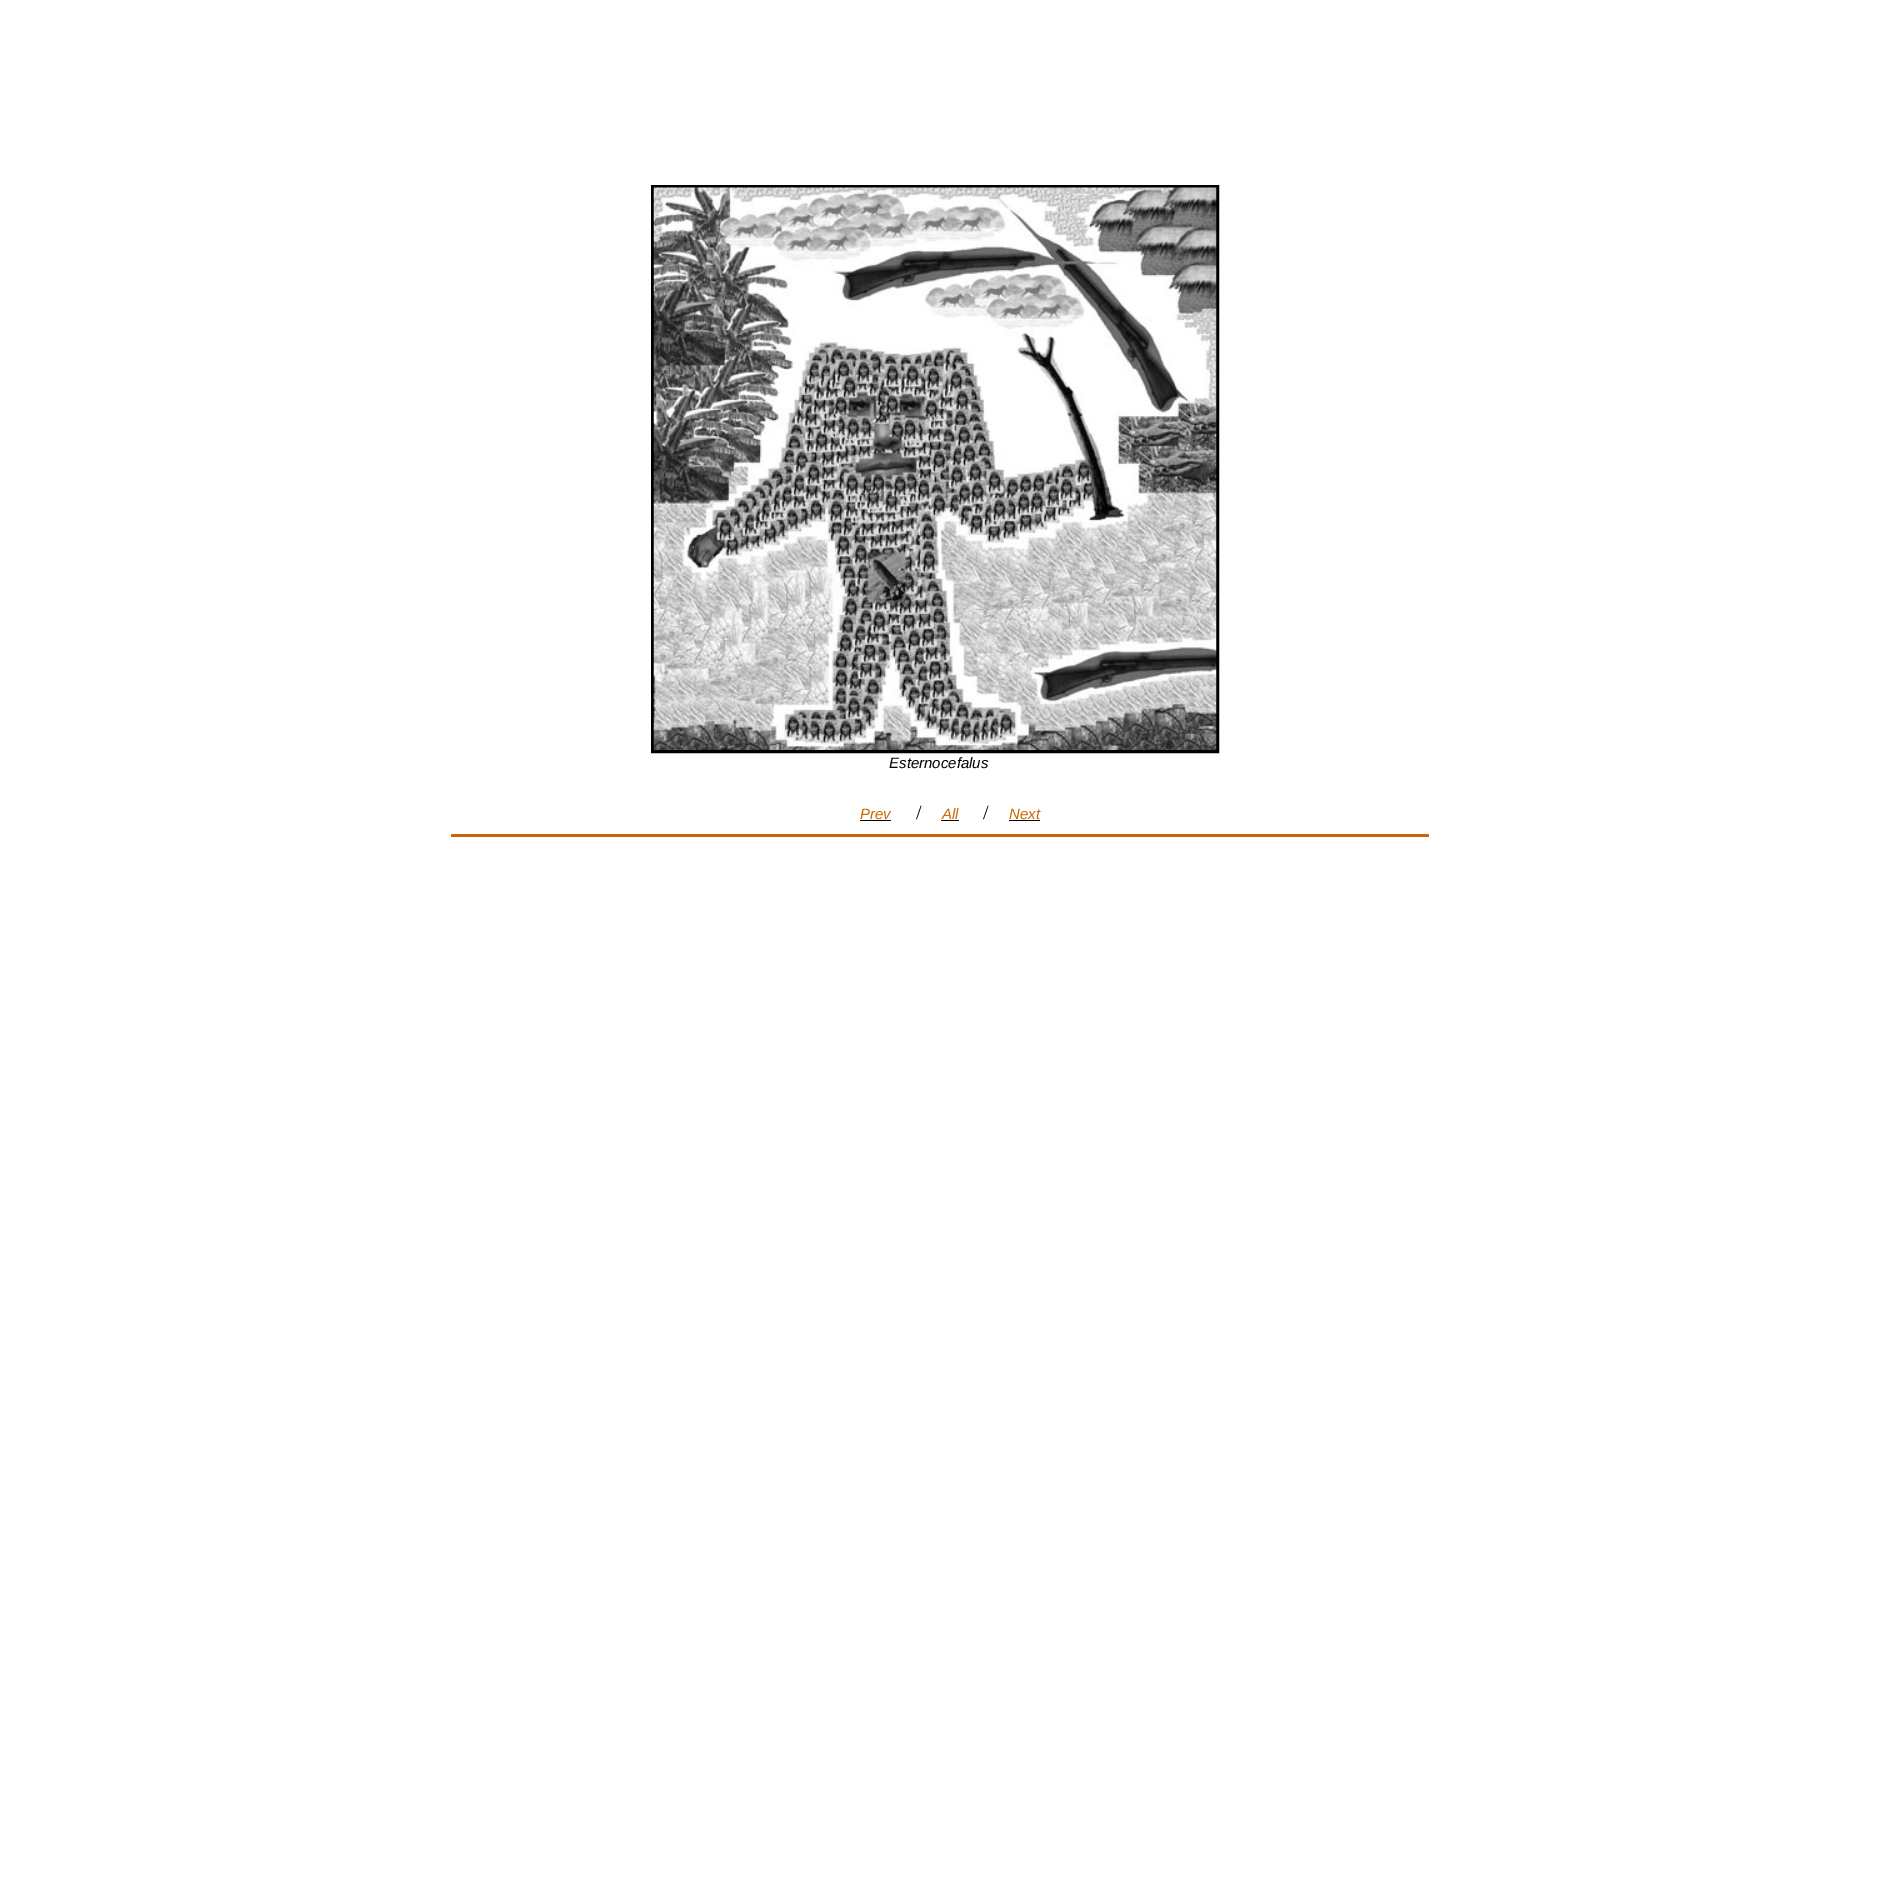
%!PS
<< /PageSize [1880 1884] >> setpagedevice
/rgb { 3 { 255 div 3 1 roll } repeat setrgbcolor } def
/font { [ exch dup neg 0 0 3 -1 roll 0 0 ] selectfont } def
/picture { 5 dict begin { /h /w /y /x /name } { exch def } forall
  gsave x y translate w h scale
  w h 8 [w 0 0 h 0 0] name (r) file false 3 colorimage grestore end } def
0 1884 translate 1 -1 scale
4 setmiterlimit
255 255 255 rgb
0 0 1880 1884 rectfill
0 0 0 rgb
3 setlinewidth
652.5 186.5 565 565 rectstroke
(img/1.rgb) 653 187 564 563 picture
[
  [860 820 31 1 0 0 0]
  [941 820 18 1 0 0 0]
  [1009 820 31 1 0 0 0]
  [451 834 978 3 204 102 0]
] { aload pop rgb rectfill } forall
/LiberationSans-Italic 15 font
0 0 0 rgb
889 768 moveto (Esternocefalus) show
204 102 0 rgb
860 819 moveto (Prev) show
/LiberationSerif-Regular 20 font
0 0 0 rgb
916 819 moveto (/) show
/LiberationSans-Italic 15 font
204 102 0 rgb
942 819 moveto (All) show
/LiberationSerif-Regular 20 font
0 0 0 rgb
983 819 moveto (/) show
/LiberationSans-Italic 15 font
204 102 0 rgb
1009 819 moveto (Next) show
showpage
